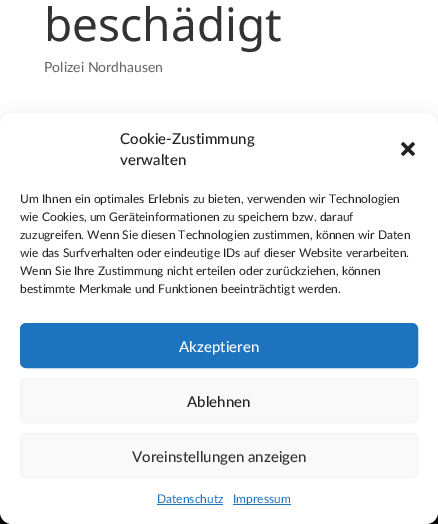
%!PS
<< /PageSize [438 524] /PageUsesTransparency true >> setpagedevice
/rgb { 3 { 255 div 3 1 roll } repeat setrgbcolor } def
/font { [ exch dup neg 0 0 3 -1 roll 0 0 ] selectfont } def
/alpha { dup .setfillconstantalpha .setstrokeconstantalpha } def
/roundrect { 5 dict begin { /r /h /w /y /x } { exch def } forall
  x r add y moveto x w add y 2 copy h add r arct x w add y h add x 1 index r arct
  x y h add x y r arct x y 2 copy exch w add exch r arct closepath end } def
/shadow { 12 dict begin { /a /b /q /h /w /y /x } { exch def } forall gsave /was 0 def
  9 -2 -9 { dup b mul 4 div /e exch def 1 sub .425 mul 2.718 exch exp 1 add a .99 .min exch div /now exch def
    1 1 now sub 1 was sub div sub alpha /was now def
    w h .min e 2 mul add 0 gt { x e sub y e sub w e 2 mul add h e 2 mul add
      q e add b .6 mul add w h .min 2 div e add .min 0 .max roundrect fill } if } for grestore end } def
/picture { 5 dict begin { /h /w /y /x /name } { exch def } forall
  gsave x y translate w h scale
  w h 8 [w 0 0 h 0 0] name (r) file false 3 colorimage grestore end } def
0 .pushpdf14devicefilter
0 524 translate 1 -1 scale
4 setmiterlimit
255 255 255 rgb
0 0 438 524 rectfill
0 0 0 rgb
0 512 438 12 rectfill
0 119 438 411 12 3 0.23 shadow
0 123 438 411 12 10 0.19 shadow
255 255 255 rgb
0 113 438 411 12 roundrect fill
(img/1.rgb) 401 142 14 14 picture
30 115 190 rgb
20.5 323.5 397 44 5.5 roundrect gsave fill grestore
stroke
249 249 249 rgb
20.5 378.5 397 44 5.5 roundrect gsave fill grestore
242 242 242 rgb
stroke
249 249 249 rgb
20.5 433.5 397 44 5.5 roundrect gsave fill grestore
242 242 242 rgb
stroke
30 115 190 rgb
157 504 66 1 rectfill
233 504 58 1 rectfill
/NotoSans-Regular 46 font
51 51 51 rgb
44 41 moveto (beschädigt) show
/Lato-Regular 14 font
102 102 102 rgb
44 72 moveto (Polizei Nordhausen) show
/Lato-Medium 15 font
34 34 34 rgb
120 144 moveto (Cookie-Zustimmung) show
120 165 moveto (verwalten) show
/Lato-Regular 12 font
[
  [(Um Ihnen ein optimales Erlebnis zu bieten, verwenden wir Technologien) 20 203]
  [(wie Cookies, um Geräteinformationen zu speichern bzw. darauf) 20 221]
  [(zuzugreifen. Wenn Sie diesen Technologien zustimmen, können wir Daten) 20 239]
  [(wie das Surfverhalten oder eindeutige IDs auf dieser Website verarbeiten.) 20 257]
  [(Wenn Sie Ihre Zustimmung nicht erteilen oder zurückziehen, können) 20 275]
  [(bestimmte Merkmale und Funktionen beeinträchtigt werden.) 20 293]
] { aload pop moveto show } forall
/Lato-Medium 15 font
255 255 255 rgb
179 352 moveto (Akzeptieren) show
34 34 34 rgb
187 407 moveto (Ablehnen) show
51 51 51 rgb
132 462 moveto (Voreinstellungen anzeigen) show
/Lato-Regular 12 font
30 115 190 rgb
157 503 moveto (Datenschutz) show
233 503 moveto (Impressum) show
.poppdf14devicefilter showpage
